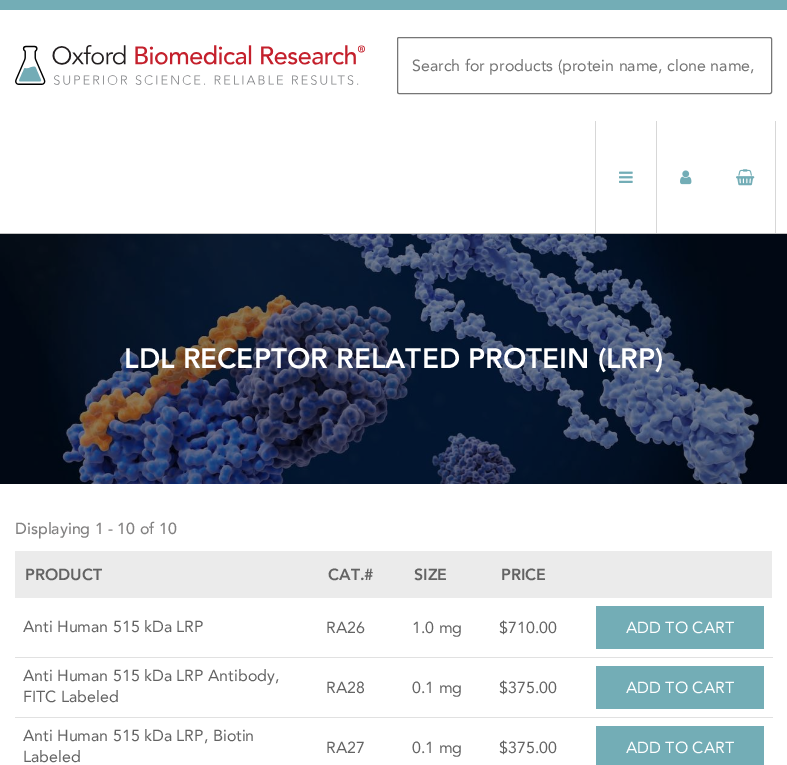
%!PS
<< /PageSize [787 765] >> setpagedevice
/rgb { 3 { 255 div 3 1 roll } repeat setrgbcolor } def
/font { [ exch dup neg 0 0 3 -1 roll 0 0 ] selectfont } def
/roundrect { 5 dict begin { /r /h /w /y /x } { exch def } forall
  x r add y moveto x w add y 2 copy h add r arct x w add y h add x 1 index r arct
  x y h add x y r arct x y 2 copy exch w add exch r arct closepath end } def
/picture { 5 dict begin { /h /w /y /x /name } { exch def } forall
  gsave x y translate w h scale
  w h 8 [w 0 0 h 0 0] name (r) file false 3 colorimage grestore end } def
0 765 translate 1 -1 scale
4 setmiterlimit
255 255 255 rgb
0 0 787 765 rectfill
115 173 182 rgb
0 0 787 10 rectfill
194 194 194 rgb
0 233 787 1 rectfill
(img/1.rgb) 15 45 350 40 picture
118 118 118 rgb
397.5 37.5 374 56 1.5 roundrect stroke
215 215 215 rgb
595 121 1 112 rectfill
(img/2.rgb) 619 171 14 12 picture
656 121 1 112 rectfill
(img/3.rgb) 680 170 12 15 picture
775 121 1 112 rectfill
(img/4.rgb) 736 169 19 17 picture
(img/5.rgb) 0 234 787 250 picture
[
  [15 551 757 47 235 235 235]
  [15 657 758 1 225 225 225]
  [596 606 168 43 115 173 182]
  [15 717 758 1 225 225 225]
  [596 666 168 43 115 173 182]
  [596 726 168 39 115 173 182]
] { aload pop rgb rectfill } forall
/Avenir-Regular 16 font
117 117 117 rgb
412 71 moveto (Search for products \(protein name, clone name,) show
/Avenir-Black 28 font
255 255 255 rgb
124 368 moveto (LDL RECEPTOR RELATED PROTEIN \(LRP\)) show
/Avenir-Medium 16 font
130 129 129 rgb
15 534 moveto (Displaying 1 - 10 of 10) show
/Avenir-Black 16 font
99 99 99 rgb
[
  [(PRODUCT) 25 580]
  [(CAT.#) 328 580]
  [(SIZE) 414 580]
  [(PRICE) 501 580]
] { aload pop moveto show } forall
/Avenir-Regular 16 font
[
  [(Anti Human 515 kDa LRP) 23 632]
  [(RA26) 326 633]
  [(1.0 mg) 412 633]
  [($710.00) 499 633]
] { aload pop moveto show } forall
255 255 255 rgb
626 633 moveto (ADD TO CART) show
99 99 99 rgb
[
  [(Anti Human 515 kDa LRP Antibody,) 23 681]
  [(FITC Labeled) 23 702]
  [(RA28) 326 693]
  [(0.1 mg) 412 693]
  [($375.00) 499 693]
] { aload pop moveto show } forall
255 255 255 rgb
626 693 moveto (ADD TO CART) show
99 99 99 rgb
[
  [(Anti Human 515 kDa LRP, Biotin) 23 741]
  [(Labeled) 23 762]
  [(RA27) 326 753]
  [(0.1 mg) 412 753]
  [($375.00) 499 753]
] { aload pop moveto show } forall
255 255 255 rgb
626 753 moveto (ADD TO CART) show
showpage
